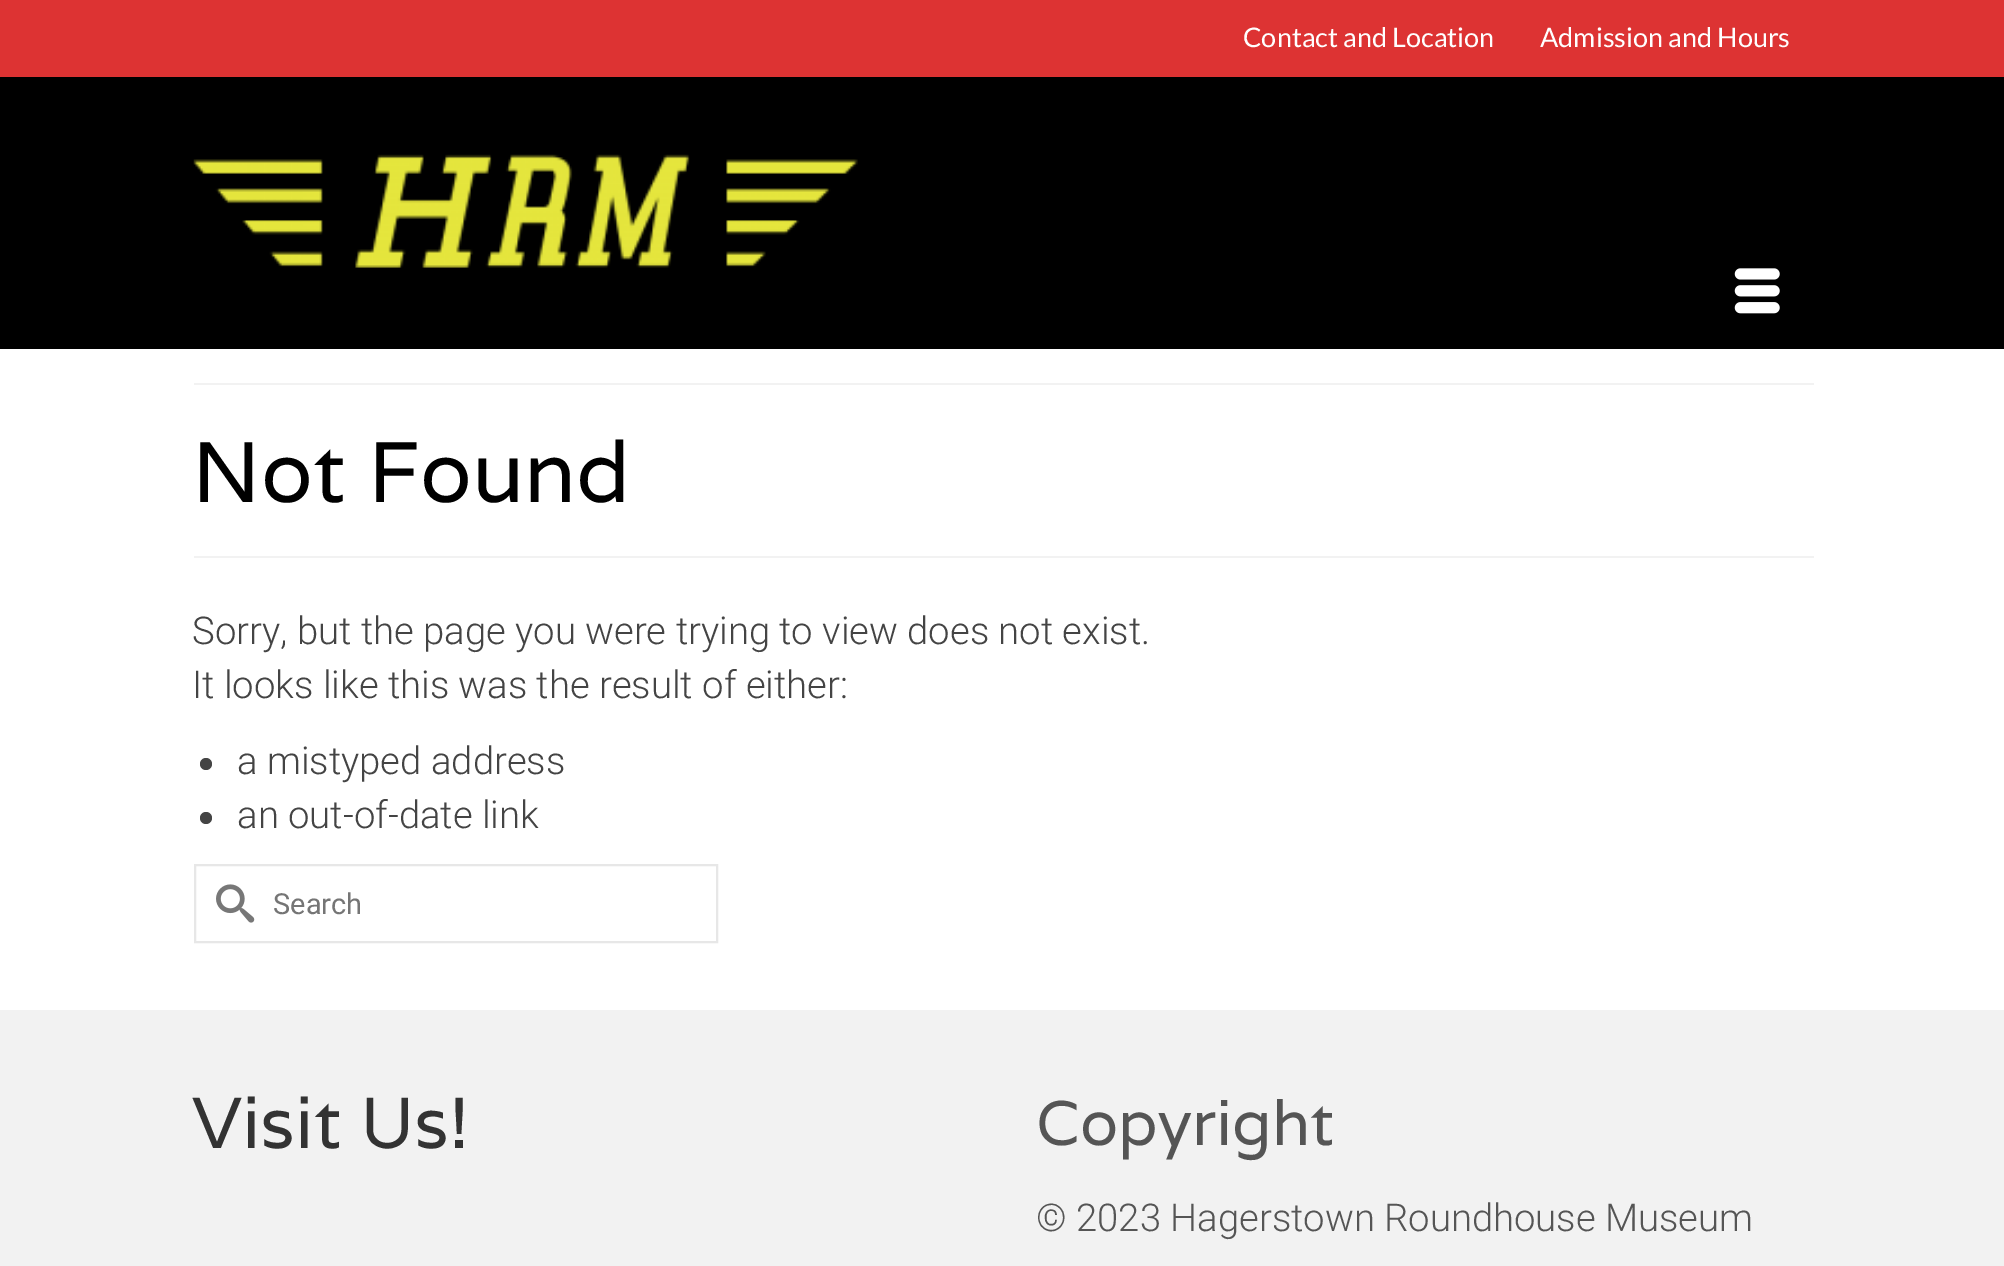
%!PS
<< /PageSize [2004 1266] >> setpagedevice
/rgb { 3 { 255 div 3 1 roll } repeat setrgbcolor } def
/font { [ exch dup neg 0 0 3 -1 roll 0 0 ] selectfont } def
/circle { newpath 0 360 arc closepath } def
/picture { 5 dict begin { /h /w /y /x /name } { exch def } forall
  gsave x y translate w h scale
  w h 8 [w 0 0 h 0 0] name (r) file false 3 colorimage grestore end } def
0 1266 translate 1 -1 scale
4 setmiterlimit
255 255 255 rgb
0 0 2004 1266 rectfill
0 0 0 rgb
0 77 2004 272 rectfill
221 51 51 rgb
0 0 2004 77 rectfill
(img/1.rgb) 193 154 665 114 picture
(img/2.rgb) 1734 268 46 46 picture
242 242 242 rgb
194 383 1620 2 rectfill
194 556 1620 2 rectfill
68 68 68 rgb
206 764 6 circle fill
206 818 6 circle fill
231 231 231 rgb
2 setlinewidth
195 865 522 77 rectstroke
(img/3.rgb) 216 884 39 39 picture
242 242 242 rgb
0 1010 2004 256 rectfill
/Lato-Regular 27 font
255 255 255 rgb
1243 47 moveto (Contact and Location) show
1540 47 moveto (Admission and Hours) show
/Varela-Regular 85.5 font
0 0 0 rgb
192 502 moveto (Not Found) show
/Roboto-Light 38.25 font
68 68 68 rgb
[
  [(Sorry, but the page you were trying to view does not exist.) 192 644]
  [(It looks like this was the result of either:) 192 698]
  [(a mistyped address) 237 774]
  [(an out-of-date link) 237 828]
] { aload pop moveto show } forall
/Roboto-Regular 29 font
117 117 117 rgb
273 914 moveto (Search) show
/Varela-Regular 72 font
51 51 51 rgb
192 1148 moveto (Visit Us!) show
/Varela-Regular 63 font
85 85 85 rgb
1036 1145 moveto (Copyright) show
/Roboto-Light 38.25 font
1036 1231 moveto (© 2023 Hagerstown Roundhouse Museum) show
showpage
